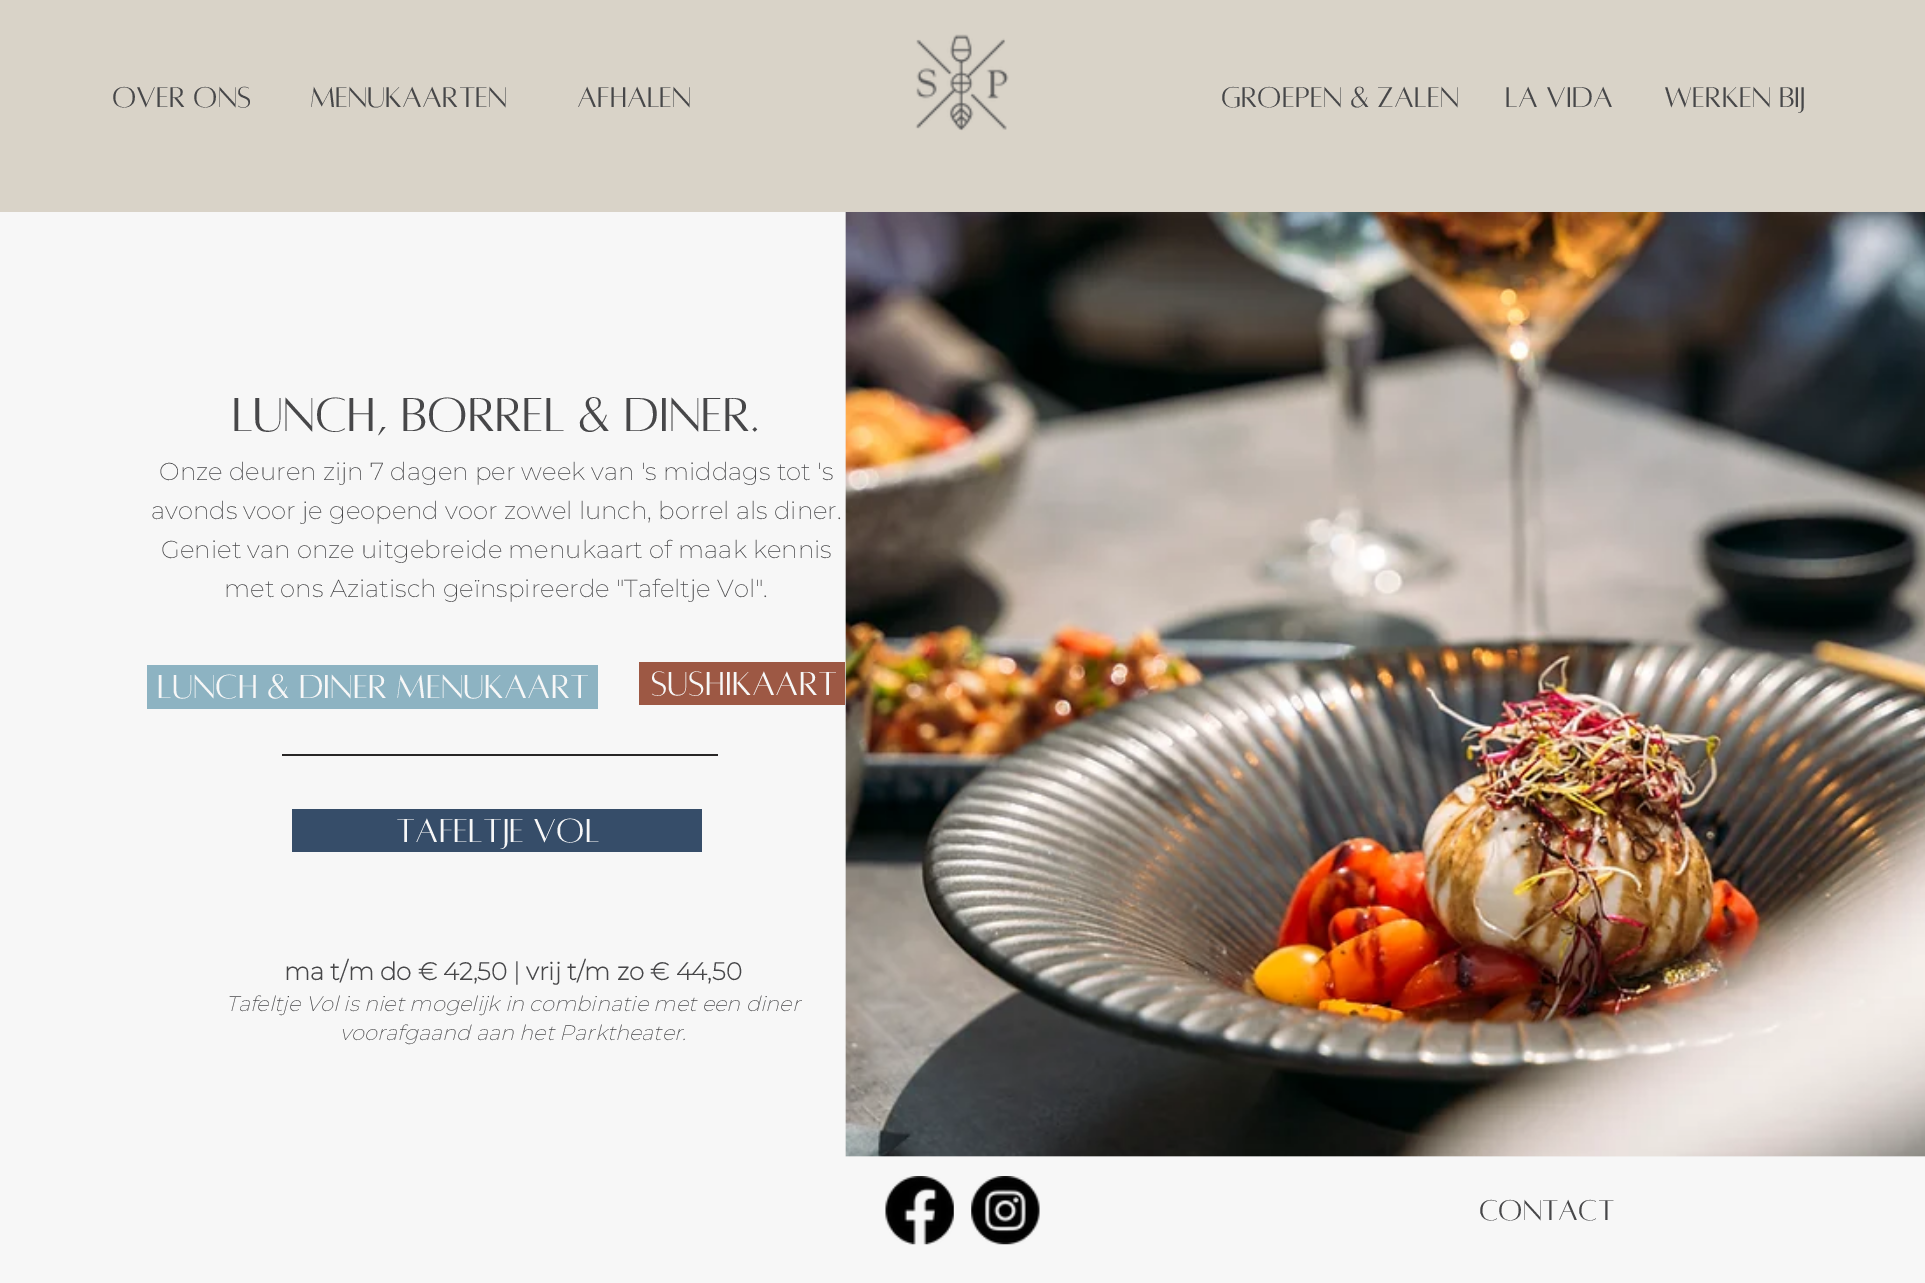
%!PS
<< /PageSize [1925 1283] >> setpagedevice
/rgb { 3 { 255 div 3 1 roll } repeat setrgbcolor } def
/font { [ exch dup neg 0 0 3 -1 roll 0 0 ] selectfont } def
/picture { 5 dict begin { /h /w /y /x /name } { exch def } forall
  gsave x y translate w h scale
  w h 8 [w 0 0 h 0 0] name (r) file false 3 colorimage grestore end } def
0 1283 translate 1 -1 scale
4 setmiterlimit
247 247 247 rgb
0 0 1925 1283 rectfill
217 211 200 rgb
0 0 1925 212 rectfill
(img/1.rgb) 915 34 94 97 picture
[
  [147 665 451 44 141 179 194]
  [282 754 436 2 40 38 38]
  [292 809 410 43 54 77 105]
  [639 662 206 43 157 88 68]
  [845 212 1080 945 244 244 244]
] { aload pop rgb rectfill } forall
(img/2.rgb) 845 212 1080 945 picture
(img/3.rgb) 885 1176 69 69 picture
(img/4.rgb) 971 1176 69 69 picture
/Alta-Regular 31.5 font
71 71 73 rgb
[
  [(Over ons) 112 107]
  [(menukaarten) 310 107]
  [(Afhalen) 577 107]
  [(groepen & zalen) 1221 107]
  [(la vida) 1505 107]
  [(Werken bij) 1664 107]
] { aload pop moveto show } forall
/Alta-Regular 52.5 font
232 431 moveto (lunch, borrel & diner.) show
/Montserrat-ExtraLight 24.5 font
[
  [(Onze deuren zijn 7 dagen per week van 's middags tot 's) 159 480]
  [(avonds voor je geopend voor zowel lunch, borrel als diner.) 151 519]
  [(Geniet van onze uitgebreide menukaart of maak kennis) 161 558]
  [(met ons Aziatisch geïnspireerde "Tafeltje Vol".) 224 597]
] { aload pop moveto show } forall
/Alta-Regular 36.75 font
247 247 247 rgb
[
  [(LUNCH & DINER MENUKAART) 157 698]
  [(TAFELTJE VOL) 396 842]
  [(Sushikaart) 651 695]
] { aload pop moveto show } forall
/Montserrat-Bold 24.5 font
71 71 73 rgb
284 980 moveto (ma t/m do € 42,50 | vrij t/m zo € 44,50) show
/Montserrat-ExtraLightItalic 21 font
226 1011 moveto (Tafeltje Vol is niet mogelijk in combinatie met een diner) show
340 1040 moveto (voorafgaand aan het Parktheater.) show
/Alta-Regular 31.5 font
1479 1220 moveto (contact) show
showpage
